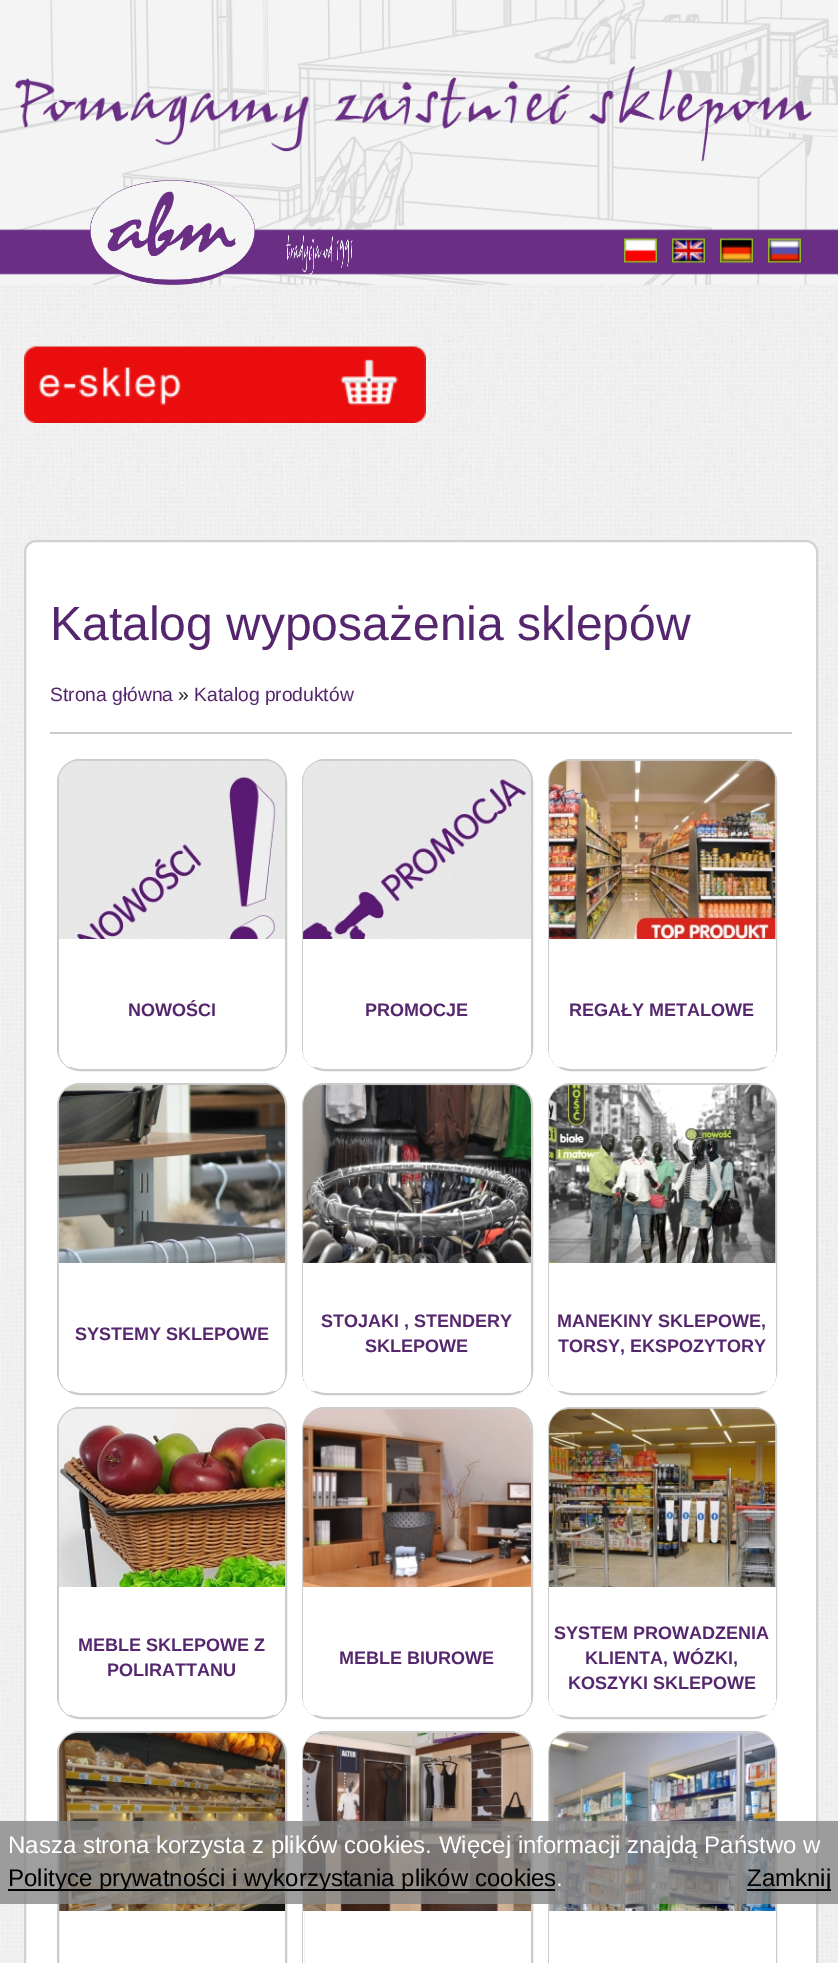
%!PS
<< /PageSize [838 1963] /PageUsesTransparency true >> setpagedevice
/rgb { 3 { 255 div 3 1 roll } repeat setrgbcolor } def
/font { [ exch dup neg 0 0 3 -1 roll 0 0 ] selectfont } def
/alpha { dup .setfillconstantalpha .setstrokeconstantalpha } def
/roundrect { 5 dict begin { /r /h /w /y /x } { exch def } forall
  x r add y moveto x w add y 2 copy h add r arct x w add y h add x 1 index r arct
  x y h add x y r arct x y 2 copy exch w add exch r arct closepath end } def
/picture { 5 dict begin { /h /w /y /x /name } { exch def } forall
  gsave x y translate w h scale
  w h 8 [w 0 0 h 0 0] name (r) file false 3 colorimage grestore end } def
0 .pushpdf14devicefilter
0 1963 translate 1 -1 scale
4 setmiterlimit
255 255 255 rgb
0 0 838 1963 rectfill
(img/1.rgb) 0 0 838 1963 picture
(img/2.rgb) 0 0 838 285 picture
(img/3.rgb) 15 66 797 96 picture
(img/5.rgb) 0 229 838 46 picture
(img/4.rgb) 90 180 165 105 picture
(img/6.rgb) 624 238 33 25 picture
(img/7.rgb) 672 238 33 25 picture
(img/8.rgb) 720 238 33 25 picture
(img/9.rgb) 768 238 33 25 picture
(img/10.rgb) 24 346 402 77 picture
25 541 792 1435 11 roundrect gsave fill grestore
209 209 209 rgb
2 setlinewidth
stroke
204 204 204 rgb
50 732 742 2 rectfill
58 760 228 310 22 roundrect stroke
(img/11.rgb) 58 760 227 179 picture
gsave
59 761 226 309 21 roundrect clip newpath
255 255 255 rgb
59 939 226 128 rectfill
grestore
303 760 229 310 22 roundrect stroke
(img/12.rgb) 303 760 228 179 picture
gsave
303 761 228 309 21 roundrect clip newpath
255 255 255 rgb
303 939 228 128 rectfill
grestore
549 760 227 310 22 roundrect stroke
(img/13.rgb) 549 760 227 179 picture
gsave
549 761 227 309 21 roundrect clip newpath
255 255 255 rgb
549 939 227 128 rectfill
grestore
58 1084 228 310 22 roundrect stroke
(img/14.rgb) 58 1084 227 179 picture
gsave
59 1085 226 309 21 roundrect clip newpath
255 255 255 rgb
59 1263 226 128 rectfill
grestore
303 1084 229 310 22 roundrect stroke
(img/15.rgb) 303 1084 228 179 picture
gsave
303 1085 228 309 21 roundrect clip newpath
255 255 255 rgb
303 1263 228 128 rectfill
grestore
549 1084 227 310 22 roundrect stroke
(img/16.rgb) 549 1084 227 179 picture
gsave
549 1085 227 309 21 roundrect clip newpath
255 255 255 rgb
549 1263 227 128 rectfill
grestore
58 1408 228 310 22 roundrect stroke
(img/17.rgb) 58 1408 227 179 picture
gsave
59 1409 226 309 21 roundrect clip newpath
255 255 255 rgb
59 1587 226 128 rectfill
grestore
303 1408 229 310 22 roundrect stroke
(img/18.rgb) 303 1409 228 178 picture
gsave
303 1409 228 309 21 roundrect clip newpath
255 255 255 rgb
303 1587 228 128 rectfill
grestore
549 1408 227 310 22 roundrect stroke
(img/19.rgb) 549 1408 227 179 picture
gsave
549 1409 227 309 21 roundrect clip newpath
255 255 255 rgb
549 1587 227 128 rectfill
grestore
58 1732 228 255 22 roundrect stroke
(img/20.rgb) 58 1732 227 179 picture
303 1732 229 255 22 roundrect stroke
(img/21.rgb) 303 1732 228 179 picture
255 255 255 rgb
303 1911 1 52 rectfill
204 204 204 rgb
549 1732 227 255 22 roundrect stroke
(img/22.rgb) 549 1732 227 179 picture
[
  [549 1911 227 52 255 255 255]
] { aload pop rgb rectfill } forall
0.8 alpha
[
  [0 1821 838 83 135 135 135]
] { aload pop rgb rectfill } forall
1 alpha
[
  [8 1889 547 2 0 0 0]
  [747 1889 84 2 0 0 0]
] { aload pop rgb rectfill } forall
/LiberationSans-Regular 48 font
85 38 109 rgb
50 640 moveto (Katalog wyposażenia sklepów) show
/LiberationSans-Regular 19.25 font
50 701 moveto (Strona główna) show
34 34 34 rgb
178 701 moveto (») show
85 38 109 rgb
194 701 moveto (Katalog produktów) show
/LiberationSans-Bold 18 font
[
  [(NOWOŚCI) 128 1016]
  [(PROMOCJE) 365 1016]
  [(REGAŁY METALOWE) 569 1016]
  [(SYSTEMY SKLEPOWE) 75 1340]
  [(STOJAKI , STENDERY) 321 1327]
  [(SKLEPOWE) 365 1352]
  [(MANEKINY SKLEPOWE,) 557 1327]
  [(TORSY, EKSPOZYTORY) 558 1352]
  [(MEBLE SKLEPOWE Z) 78 1651]
  [(POLIRATTANU) 107 1676]
  [(MEBLE BIUROWE) 339 1664]
  [(SYSTEM PROWADZENIA) 554 1639]
  [(KLIENTA, WÓZKI,) 585 1664]
  [(KOSZYKI SKLEPOWE) 568 1689]
] { aload pop moveto show } forall
/LiberationSans-Regular 24 font
255 255 255 rgb
8 1853 moveto (Nasza strona korzysta z plików cookies. Więcej informacji znajdą Państwo w) show
0 0 0 rgb
8 1886 moveto (Polityce prywatności i wykorzystania plików cookies) show
255 255 255 rgb
556 1886 moveto (.) show
0 0 0 rgb
747 1886 moveto (Zamknij) show
.poppdf14devicefilter showpage
